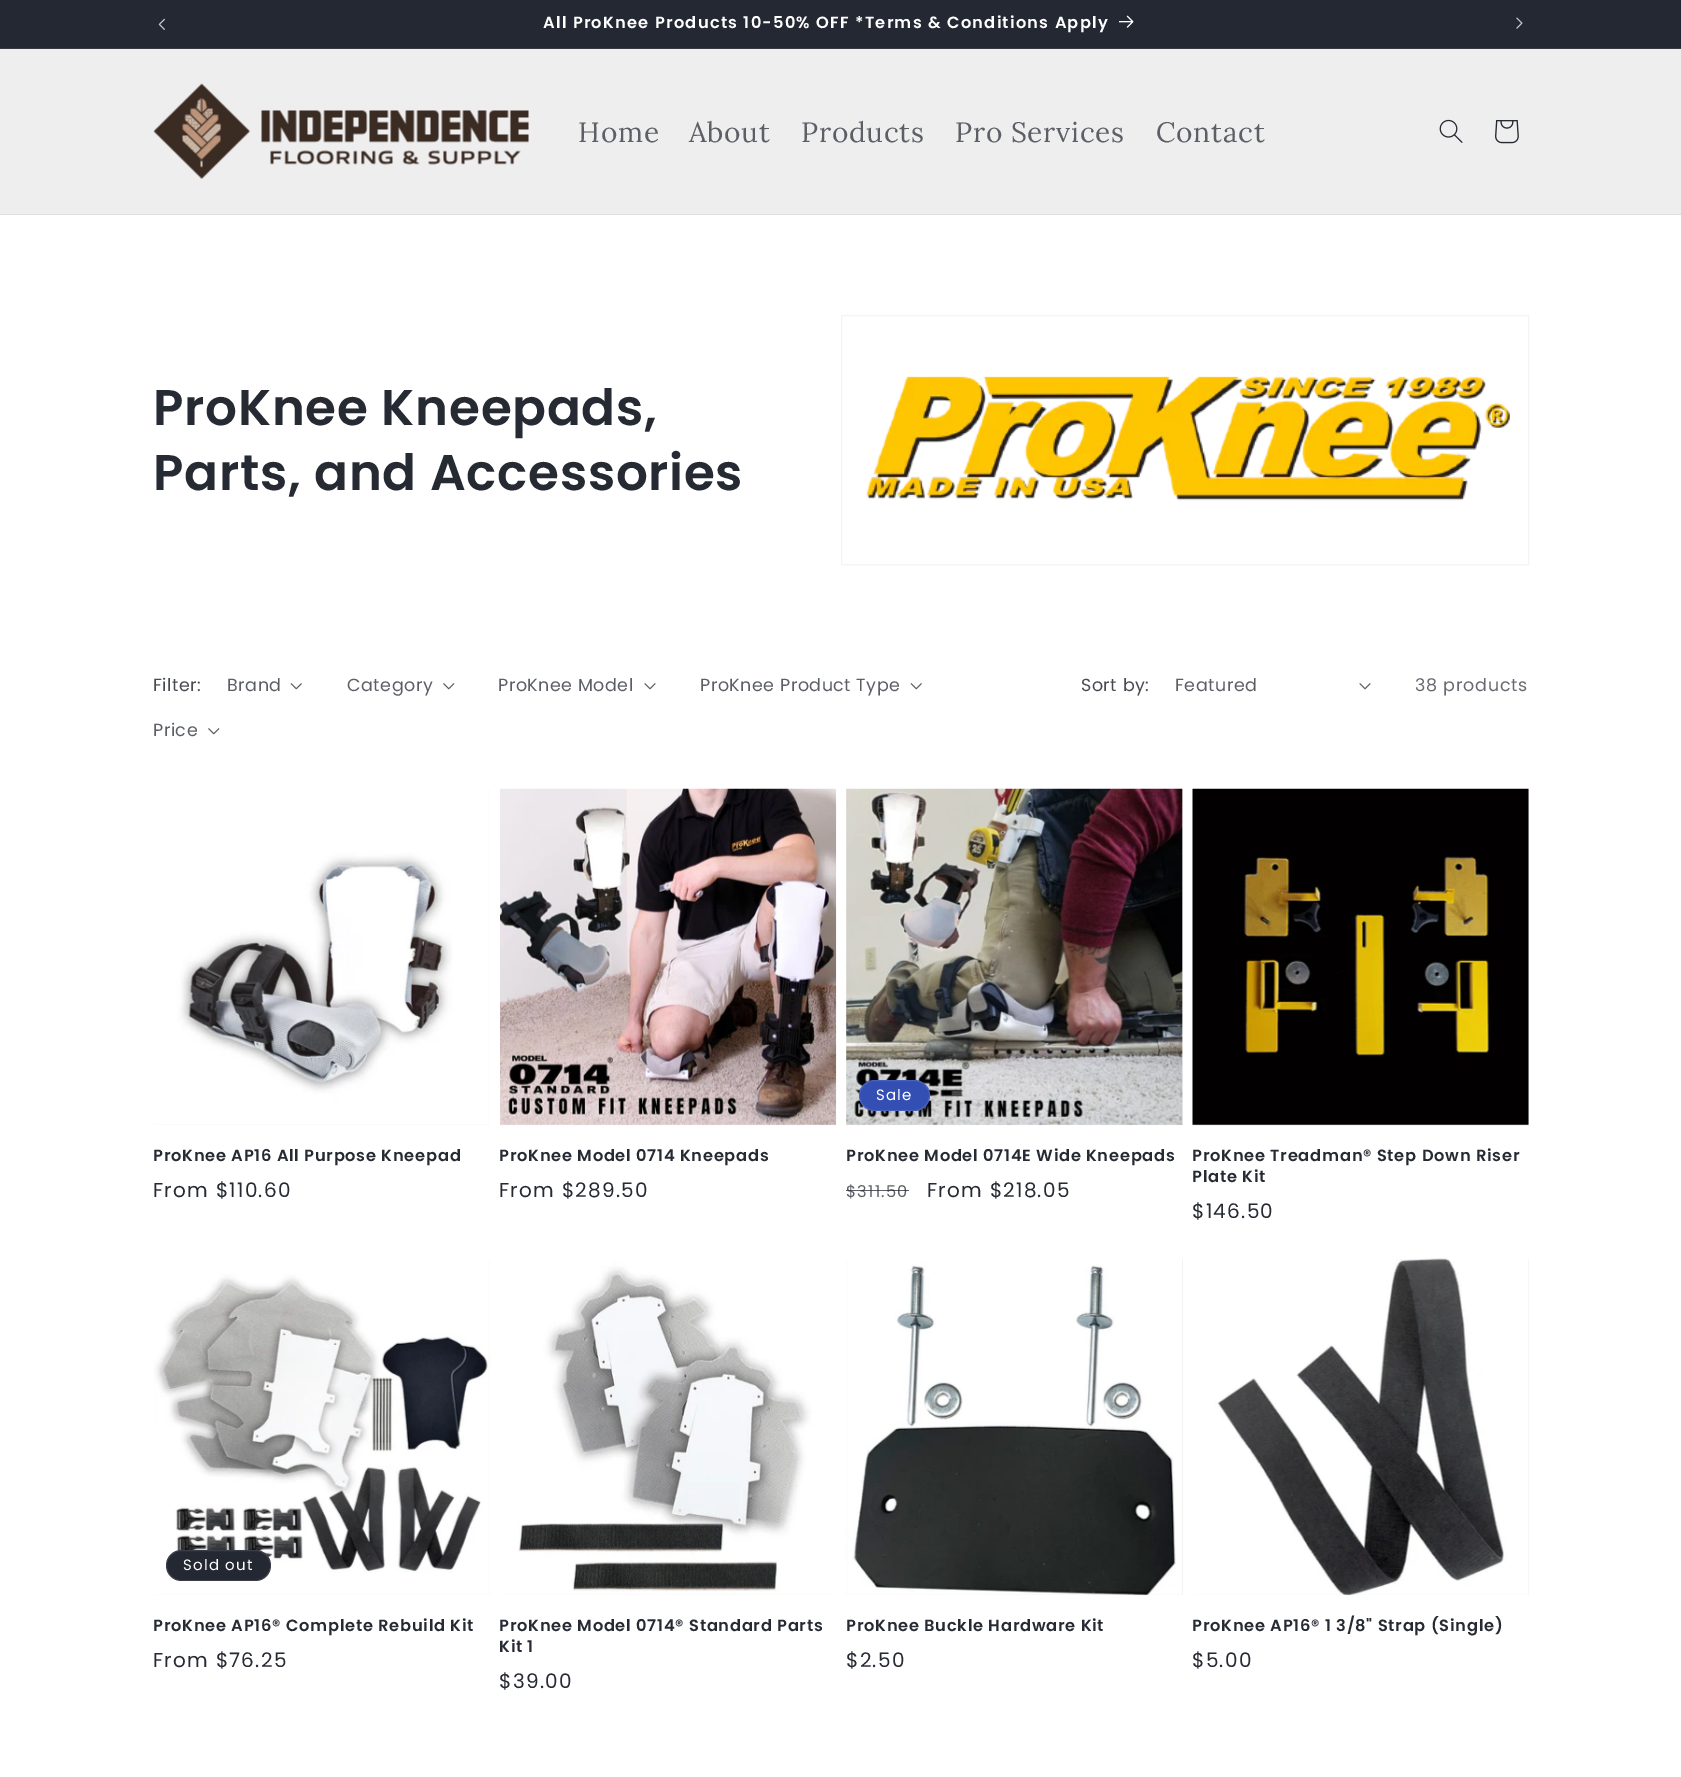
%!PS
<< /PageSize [1681 1777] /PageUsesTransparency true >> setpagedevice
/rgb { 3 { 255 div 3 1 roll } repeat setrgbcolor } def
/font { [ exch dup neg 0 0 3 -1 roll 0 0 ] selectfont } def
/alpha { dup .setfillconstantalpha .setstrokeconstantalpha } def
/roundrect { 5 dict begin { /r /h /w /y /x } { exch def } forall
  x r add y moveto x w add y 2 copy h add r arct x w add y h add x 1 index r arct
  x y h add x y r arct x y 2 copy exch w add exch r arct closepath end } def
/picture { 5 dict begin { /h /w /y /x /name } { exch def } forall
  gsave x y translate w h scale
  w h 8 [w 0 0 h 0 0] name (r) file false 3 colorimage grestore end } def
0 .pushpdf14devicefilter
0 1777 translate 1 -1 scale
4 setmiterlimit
255 255 255 rgb
0 0 1681 1777 rectfill
36 40 51 rgb
0 0 1681 48 rectfill
54 57 67 rgb
0 48 1681 1 rectfill
(img/1.rgb) 158 18 7 12 picture
(img/2.rgb) 1119 15 15 13 picture
(img/3.rgb) 1516 17 7 12 picture
239 238 239 rgb
0 49 1681 165 rectfill
223 222 224 rgb
0 214 1681 1 rectfill
(img/4.rgb) 153 83 376 96 picture
(img/5.rgb) 1439 119 24 24 picture
(img/6.rgb) 1495 120 24 24 picture
244 244 245 rgb
841.5 315.5 687 249 rectstroke
(img/7.rgb) 865 376 645 125 picture
(img/8.rgb) 290 683 12 7 picture
(img/9.rgb) 443 683 12 7 picture
(img/10.rgb) 644 683 12 7 picture
(img/8.rgb) 910 683 12 7 picture
(img/9.rgb) 208 728 12 7 picture
(img/10.rgb) 1359 683 12 7 picture
239 238 239 rgb
154 789 336 336 rectfill
(img/11.rgb) 154 789 336 336 picture
(img/12.rgb) 500 788 337 338 picture
846 789 337 336 rectfill
(img/13.rgb) 846 788 337 338 picture
51 79 180 rgb
859 1080 71 31 15.5 roundrect fill
0.1 alpha
255 255 255 rgb
859.5 1080.5 70 30 15 roundrect stroke
1 alpha
239 238 239 rgb
1193 789 336 336 rectfill
(img/14.rgb) 1192 788 337 338 picture
154 1259 336 336 rectfill
(img/15.rgb) 154 1259 336 336 picture
36 40 51 rgb
166 1550 105 31 15.5 roundrect fill
0.1 alpha
255 255 255 rgb
166.5 1550.5 104 30 15 roundrect stroke
1 alpha
(img/16.rgb) 500 1259 336 336 picture
239 238 239 rgb
846 1259 337 336 rectfill
(img/17.rgb) 846 1259 337 337 picture
1193 1259 336 336 rectfill
(img/18.rgb) 1193 1258 336 338 picture
/Poppins-SemiBold 16.25 font
255 255 255 rgb
543 28 moveto 1.25 0 (All ProKnee Products 10-50% OFF *Terms & Conditions Apply) ashow
/Lora-Regular 28 font
92 95 101 rgb
578 142 moveto 0.75 0 (Home) ashow
689 142 moveto 0.75 0 (About) ashow
801 142 moveto 0.75 0 (Products) ashow
955 142 moveto 0.75 0 (Pro Services) ashow
1156 142 moveto 0.75 0 (Contact) ashow
/Poppins-SemiBold 50 font
38 42 50 rgb
153 425 moveto 0.75 0 (ProKnee Kneepads,) ashow
153 490 moveto 0.75 0 (Parts, and Accessories) ashow
/Poppins-Regular 17.5 font
71 74 81 rgb
153 691 moveto 0.5 0 (Filter:) ashow
92 95 101 rgb
227 691 moveto 0.5 0 (Brand) ashow
347 691 moveto 0.5 0 (Category) ashow
498 691 moveto 0.5 0 (ProKnee Model) ashow
700 691 moveto 0.5 0 (ProKnee Product Type) ashow
153 736 moveto 0.5 0 (Price) ashow
71 74 81 rgb
1081 691 moveto 0.5 0 (Sort by:) ashow
92 95 101 rgb
1175 691 moveto 0.5 0 (Featured) ashow
103 106 112 rgb
1415 691 moveto 0.75 0 (38 products) ashow
/Poppins-SemiBold 16.25 font
38 42 50 rgb
153 1161 moveto 0.75 0 (ProKnee AP16 All Purpose Kneepad) ashow
/Poppins-Regular 20 font
153 1197 moveto 1.25 0 (From $110.60) ashow
/Poppins-SemiBold 16.25 font
499 1161 moveto 0.75 0 (ProKnee Model 0714 Kneepads) ashow
/Poppins-Regular 20 font
499 1197 moveto 1.25 0 (From $289.50) ashow
/Poppins-Regular 15 font
255 255 255 rgb
876 1100 moveto 1.25 0 (Sale) ashow
/Poppins-SemiBold 16.25 font
38 42 50 rgb
846 1161 moveto 0.75 0 (ProKnee Model 0714E Wide Kneepads) ashow
/Poppins-Regular 16.25 font
92 95 101 rgb
846 1197 moveto 1.25 0 ($311.50) ashow
0.75 alpha
38 42 50 rgb
846 1190 63 1 rectfill
/Poppins-Regular 20 font
1 alpha
927 1197 moveto 1.25 0 (From $218.05) ashow
/Poppins-SemiBold 16.25 font
1192 1161 moveto 0.75 0 (ProKnee Treadman® Step Down Riser) ashow
1192 1182 moveto 0.75 0 (Plate Kit) ashow
/Poppins-Regular 20 font
1192 1218 moveto 1.25 0 ($146.50) ashow
/Poppins-Regular 15 font
255 255 255 rgb
183 1570 moveto 1.25 0 (Sold out) ashow
/Poppins-SemiBold 16.25 font
38 42 50 rgb
153 1631 moveto 0.75 0 (ProKnee AP16® Complete Rebuild Kit) ashow
/Poppins-Regular 20 font
153 1667 moveto 1.25 0 (From $76.25) ashow
/Poppins-SemiBold 16.25 font
499 1631 moveto 0.75 0 (ProKnee Model 0714® Standard Parts) ashow
499 1652 moveto 0.75 0 (Kit 1) ashow
/Poppins-Regular 20 font
499 1688 moveto 1.25 0 ($39.00) ashow
/Poppins-SemiBold 16.25 font
846 1631 moveto 0.75 0 (ProKnee Buckle Hardware Kit) ashow
/Poppins-Regular 20 font
846 1667 moveto 1.25 0 ($2.50) ashow
/Poppins-SemiBold 16.25 font
1192 1631 moveto 0.75 0 (ProKnee AP16® 1 3/8" Strap \(Single\)) ashow
/Poppins-Regular 20 font
1192 1667 moveto 1.25 0 ($5.00) ashow
.poppdf14devicefilter showpage
